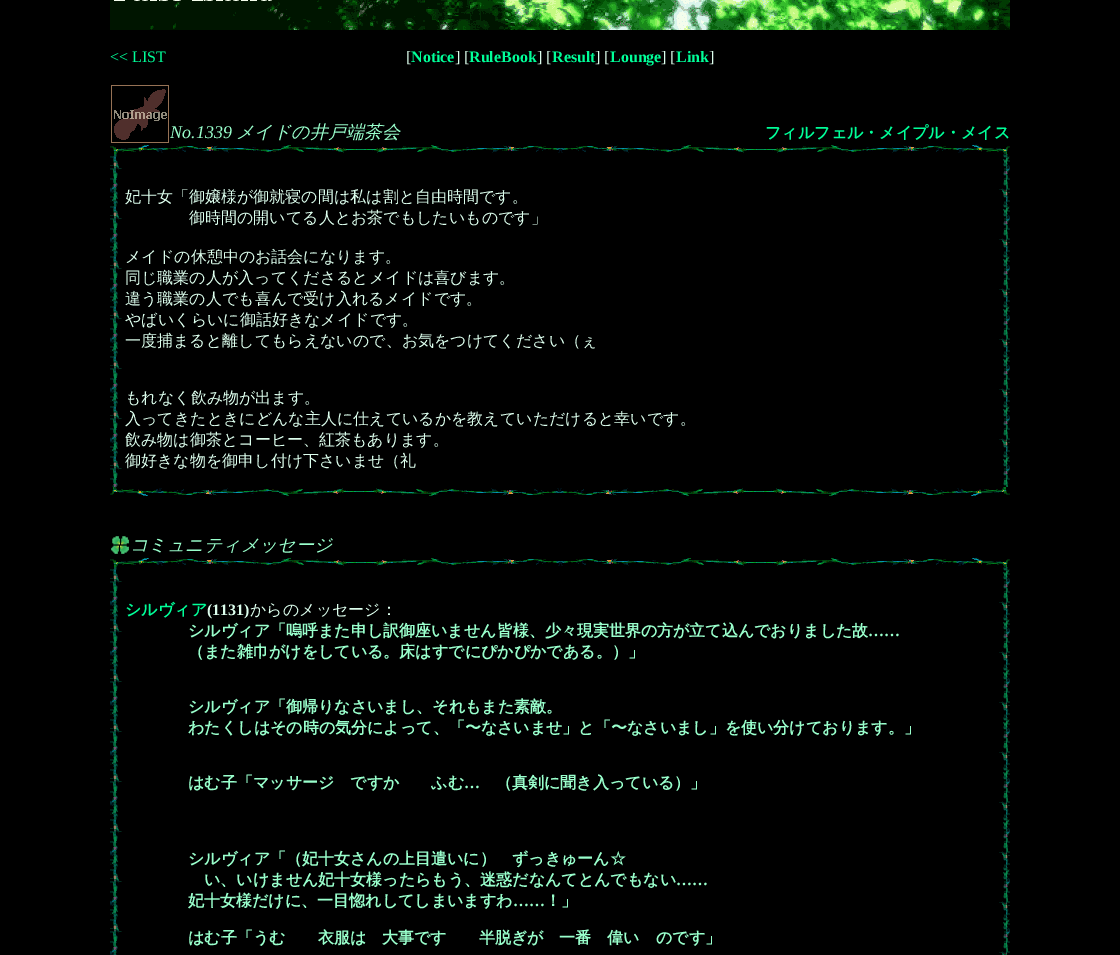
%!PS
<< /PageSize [1120 955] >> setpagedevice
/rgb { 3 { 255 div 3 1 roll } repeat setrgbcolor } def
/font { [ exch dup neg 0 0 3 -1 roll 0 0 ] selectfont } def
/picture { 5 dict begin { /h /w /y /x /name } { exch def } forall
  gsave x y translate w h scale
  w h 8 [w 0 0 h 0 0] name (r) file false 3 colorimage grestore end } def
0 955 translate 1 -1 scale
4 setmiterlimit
0 0 0 rgb
0 0 1120 955 rectfill
(img/1.rgb) 110 0 900 30 picture
(img/2.rgb) 111 85 58 58 picture
(img/3.rgb) 110 144 900 10 picture
(img/4.rgb) 110 154 900 333 picture
(img/5.rgb) 110 487 900 9 picture
(img/6.rgb) 111 536 18 18 picture
(img/3.rgb) 110 557 900 10 picture
(img/7.rgb) 110 567 900 388 picture
/LiberationSerif-Regular 16 font
0 255 153 rgb
110 62 moveto (<< LIST) show
221 255 238 rgb
406 62 moveto ([) show
/LiberationSerif-Bold 16 font
0 255 153 rgb
411 62 moveto (Notice) show
/LiberationSerif-Regular 16 font
221 255 238 rgb
455 62 moveto (] [) show
/LiberationSerif-Bold 16 font
0 255 153 rgb
469 62 moveto (RuleBook) show
/LiberationSerif-Regular 16 font
221 255 238 rgb
537 62 moveto (] [) show
/LiberationSerif-Bold 16 font
0 255 153 rgb
552 62 moveto (Result) show
/LiberationSerif-Regular 16 font
221 255 238 rgb
595 62 moveto (] [) show
/LiberationSerif-Bold 16 font
0 255 153 rgb
610 62 moveto (Lounge) show
/LiberationSerif-Regular 16 font
221 255 238 rgb
661 62 moveto (] [) show
/LiberationSerif-Bold 16 font
0 255 153 rgb
676 62 moveto (Link) show
/LiberationSerif-Regular 16 font
221 255 238 rgb
709 62 moveto (]) show
/LiberationSerif-Italic 18 font
153 255 204 rgb
170 138 moveto (No.1339) show
/WenQuanYiZenHei-MediumItalic 18 font
236 138 moveto (メイドの井戸端茶会) show
/WenQuanYiZenHei-Bold 16 font
0 255 153 rgb
765 138 moveto (フィルフェル・メイプル・メイス) show
/WenQuanYiZenHei-Medium 16 font
221 255 238 rgb
[
  [(妃十女「御嬢様が御就寝の間は私は割と自由時間です。) 125 202]
  [(御時間の開いてる人とお茶でもしたいものです」) 189 223]
  [(メイドの休憩中のお話会になります。) 125 262]
  [(同じ職業の人が入ってくださるとメイドは喜びます。) 125 283]
  [(違う職業の人でも喜んで受け入れるメイドです。) 125 304]
  [(やばいくらいに御話好きなメイドです。) 125 325]
  [(一度捕まると離してもらえないので、お気をつけてください（ぇ) 125 346]
  [(もれなく飲み物が出ます。) 125 403]
  [(入ってきたときにどんな主人に仕えているかを教えていただけると幸いです。) 125 424]
  [(飲み物は御茶とコーヒー、紅茶もあります。) 125 445]
  [(御好きな物を御申し付け下さいませ（礼) 125 466]
] { aload pop moveto show } forall
/WenQuanYiZenHei-MediumItalic 18 font
153 255 204 rgb
130 551 moveto (コミュニティメッセージ) show
/WenQuanYiZenHei-Bold 16 font
0 255 153 rgb
125 615 moveto (シルヴィア) show
/LiberationSerif-Bold 16 font
221 255 238 rgb
207 615 moveto (\(1131\)) show
/WenQuanYiZenHei-Medium 16 font
250 615 moveto (からのメッセージ：) show
/WenQuanYiZenHei-Bold 16 font
153 255 204 rgb
188 636 moveto (シルヴィア「嗚呼また申し訳御座いません皆様、少々現実世界の方が立て込んでおりました故) show
/LiberationSerif-Bold 16 font
868 636 moveto (……) show
/WenQuanYiZenHei-Bold 16 font
[
  [(（また雑巾がけをしている。床はすでにぴかぴかである。）」) 188 657]
  [(シルヴィア「御帰りなさいまし、それもまた素敵。) 188 712]
  [(わたくしはその時の気分によって、「〜なさいませ」と「〜なさいまし」を使い分けております。」) 188 733]
  [(はむ子「マッサージ　ですか　　ふむ) 188 788]
] { aload pop moveto show } forall
/LiberationSerif-Bold 16 font
464 788 moveto (…) show
/WenQuanYiZenHei-Bold 16 font
[
  [(（真剣に聞き入っている）」) 496 788]
  [(シルヴィア「（妃十女さんの上目遣いに）　ずっきゅーん☆) 188 864]
  [(い、いけません妃十女様ったらもう、迷惑だなんてとんでもない) 204 885]
] { aload pop moveto show } forall
/LiberationSerif-Bold 16 font
676 885 moveto (……) show
/WenQuanYiZenHei-Bold 16 font
188 906 moveto (妃十女様だけに、一目惚れしてしまいますわ) show
/LiberationSerif-Bold 16 font
513 906 moveto (……) show
/WenQuanYiZenHei-Bold 16 font
545 906 moveto (！」) show
188 943 moveto (はむ子「うむ　　衣服は　大事です　　半脱ぎが　一番　偉い　のです」) show
showpage
